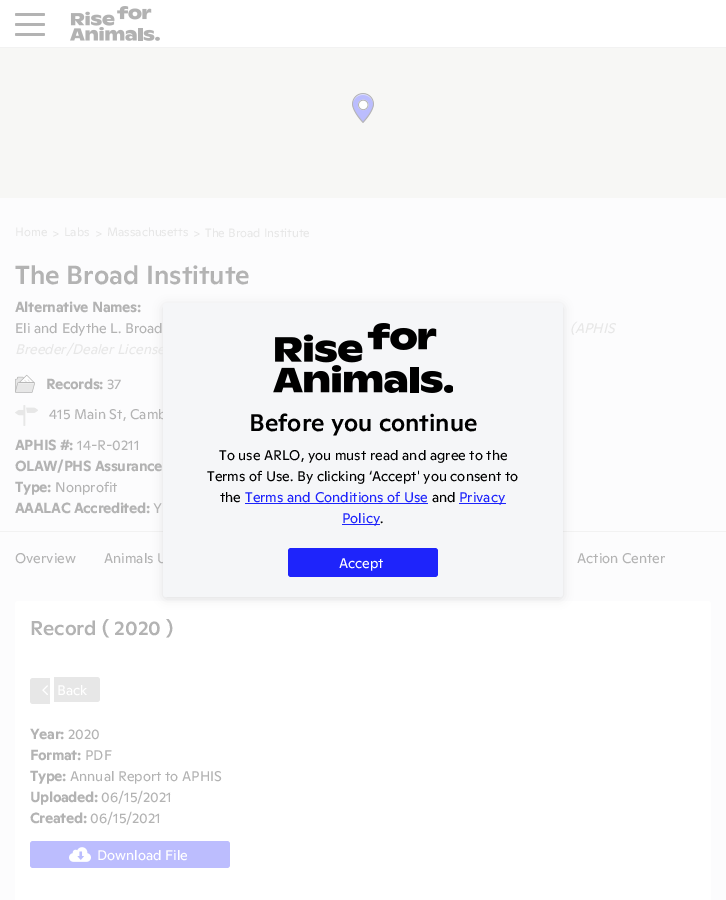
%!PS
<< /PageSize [726 900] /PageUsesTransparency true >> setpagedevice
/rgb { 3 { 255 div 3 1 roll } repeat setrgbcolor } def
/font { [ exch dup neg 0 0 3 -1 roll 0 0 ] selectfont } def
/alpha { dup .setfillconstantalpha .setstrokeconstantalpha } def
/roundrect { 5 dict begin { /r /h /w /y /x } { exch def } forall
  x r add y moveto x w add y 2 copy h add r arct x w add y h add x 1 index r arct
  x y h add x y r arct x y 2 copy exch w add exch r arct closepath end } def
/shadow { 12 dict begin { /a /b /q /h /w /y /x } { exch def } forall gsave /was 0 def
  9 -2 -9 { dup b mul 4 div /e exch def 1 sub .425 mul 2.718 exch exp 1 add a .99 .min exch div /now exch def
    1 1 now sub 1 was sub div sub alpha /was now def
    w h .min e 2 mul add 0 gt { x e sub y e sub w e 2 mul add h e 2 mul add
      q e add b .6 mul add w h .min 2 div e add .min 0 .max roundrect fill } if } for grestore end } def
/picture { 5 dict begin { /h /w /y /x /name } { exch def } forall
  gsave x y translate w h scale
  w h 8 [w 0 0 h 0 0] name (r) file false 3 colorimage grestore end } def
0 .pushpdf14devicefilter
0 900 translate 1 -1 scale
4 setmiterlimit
252 252 253 rgb
0 0 726 900 rectfill
255 255 255 rgb
0 0 726 47 rectfill
242 242 242 rgb
0 47 726 1 rectfill
179 179 179 rgb
15 13 30 3 1.5 roundrect fill
15 23 30 3 1.5 roundrect fill
15 33 30 3 1.5 roundrect fill
(img/1.rgb) 70 6 90 35 picture
247 247 245 rgb
0 48 726 150 rectfill
(img/2.rgb) 352 93 22 30 picture
(img/3.rgb) 15 374 20 19 picture
(img/4.rgb) 15 405 23 21 picture
242 242 242 rgb
0 531 726 1 rectfill
255 255 255 rgb
15 601 696 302 3 roundrect fill
231 231 231 rgb
33 678 moveto 50 678 lineto 50 704 lineto 33 704 lineto 31.5 704 30 702.5 30 701 curveto 30 681 lineto 30 679.5 31.5 678 33 678 curveto closepath fill
(img/5.rgb) 42 685 6 10 picture
54 677 moveto 97 677 lineto 98.5 677 100 678.5 100 680 curveto 100 699 lineto 100 700.5 98.5 702 97 702 curveto 54 702 lineto closepath fill
188 189 254 rgb
30 841 200 27 3 roundrect fill
(img/6.rgb) 69 847 22 15 picture
0 0 0 rgb
163 305 400 294 3 5 0.11 shadow
/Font-Regular 12 font
231 231 231 rgb
[
  [(Home) 15 236]
  [(>) 52 238]
  [(Labs) 64 236]
  [(>) 95 238]
  [(Massachusetts) 107 236]
  [(>) 193 238]
  [(The Broad Institute) 205 237]
] { aload pop moveto show } forall
/Font-Medium 26 font
179 179 179 rgb
15 284 moveto (The Broad Institute) show
/Font-Bold 14 font
15 312 moveto (Alternative Names:) show
/Font-Regular 14 font
15 333 moveto (Eli and Edythe L. Broad) show
/Font-Italic 14 font
231 231 231 rgb
570 333 moveto (\(APHIS) show
15 354 moveto (Breeder/Dealer License) show
/Font-Bold 14 font
179 179 179 rgb
46 389 moveto (Records:) show
/Font-Regular 14 font
107 389 moveto (37) show
49 419 moveto (415 Main St, Camb) show
/Font-Bold 14 font
15 450 moveto (APHIS #:) show
/Font-Regular 14 font
77 450 moveto (14-R-0211) show
/Font-Bold 14 font
15 471 moveto (OLAW/PHS Assurance) show
15 492 moveto (Type:) show
/Font-Regular 14 font
55 492 moveto (Nonprofit) show
/Font-Bold 14 font
15 513 moveto (AAALAC Accredited:) show
/Font-Regular 14 font
[
  [(Y) 153 513]
  [(Overview) 15 563]
  [(Animals U) 104 563]
  [(Action Center) 577 563]
] { aload pop moveto show } forall
/Font-Medium 20 font
30 635 moveto (Record \( 2020 \)) show
/Font-Regular 14 font
255 255 255 rgb
57 695 moveto (Back) show
/Font-Bold 14 font
179 179 179 rgb
30 739 moveto (Year:) show
/Font-Regular 14 font
68 739 moveto (2020) show
/Font-Bold 14 font
30 760 moveto (Format:) show
/Font-Regular 14 font
85 760 moveto (PDF) show
/Font-Bold 14 font
30 781 moveto (Type:) show
/Font-Regular 14 font
70 781 moveto (Annual Report to APHIS) show
/Font-Bold 14 font
30 802 moveto (Uploaded:) show
/Font-Regular 14 font
101 802 moveto (06/15/2021) show
/Font-Bold 14 font
30 823 moveto (Created:) show
/Font-Regular 14 font
90 823 moveto (06/15/2021) show
255 255 255 rgb
97 860 moveto (Download File) show
245 246 248 rgb
163 303 400 294 3 roundrect fill
(img/7.rgb) 273 323 180 70 picture
/Font-Medium 24 font
0 0 0 rgb
249 431 moveto (Before you continue) show
/Font-Regular 14 font
[
  [(To use ARLO, you must read and agree to the) 219 460]
  [(Terms of Use. By clicking ‘Accept' you consent to) 207 481]
  [(the) 220 502]
] { aload pop moveto show } forall
30 36 251 rgb
245 502 moveto (Terms and Conditions of Use) show
245 503 183 1 rectfill
0 0 0 rgb
432 502 moveto (and) show
30 36 251 rgb
459 503 47 1 rectfill
459 502 moveto (Privacy) show
342 524 38 1 rectfill
342 523 moveto (Policy) show
0 0 0 rgb
380 523 moveto (.) show
30 36 251 rgb
288 548 150 29 3 roundrect fill
255 255 255 rgb
339 568 moveto (Accept) show
.poppdf14devicefilter showpage
